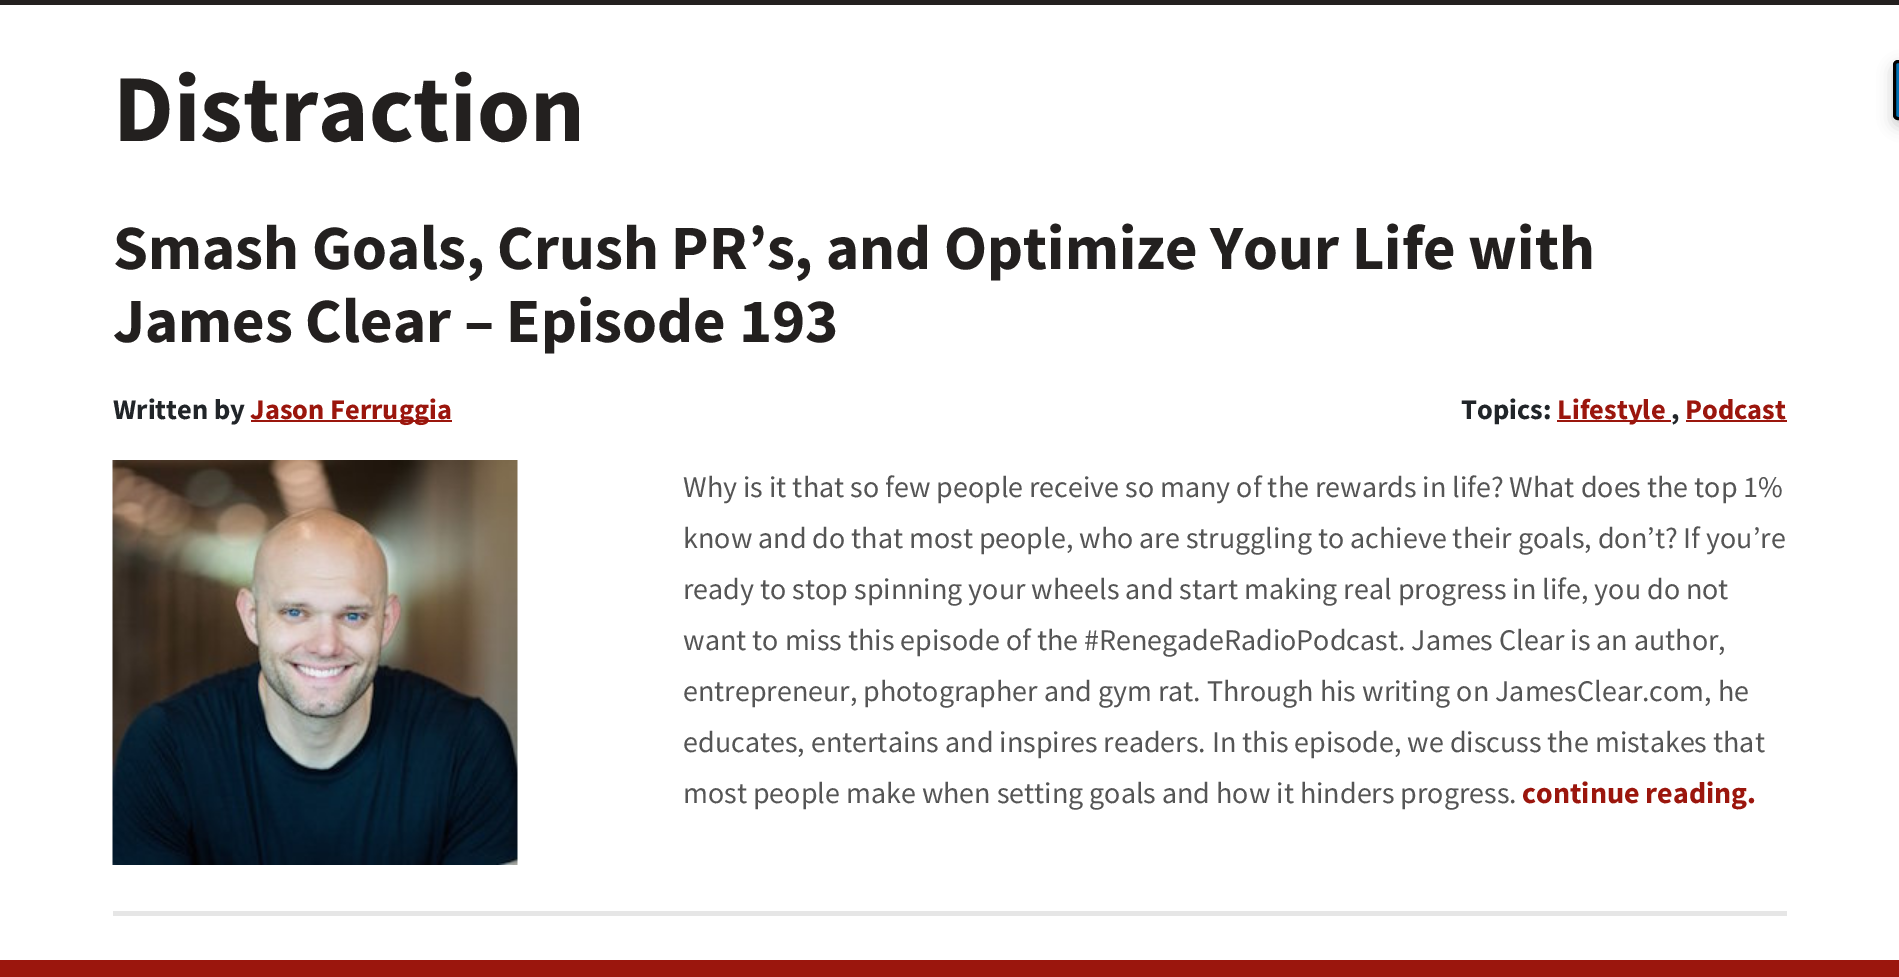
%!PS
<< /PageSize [1899 977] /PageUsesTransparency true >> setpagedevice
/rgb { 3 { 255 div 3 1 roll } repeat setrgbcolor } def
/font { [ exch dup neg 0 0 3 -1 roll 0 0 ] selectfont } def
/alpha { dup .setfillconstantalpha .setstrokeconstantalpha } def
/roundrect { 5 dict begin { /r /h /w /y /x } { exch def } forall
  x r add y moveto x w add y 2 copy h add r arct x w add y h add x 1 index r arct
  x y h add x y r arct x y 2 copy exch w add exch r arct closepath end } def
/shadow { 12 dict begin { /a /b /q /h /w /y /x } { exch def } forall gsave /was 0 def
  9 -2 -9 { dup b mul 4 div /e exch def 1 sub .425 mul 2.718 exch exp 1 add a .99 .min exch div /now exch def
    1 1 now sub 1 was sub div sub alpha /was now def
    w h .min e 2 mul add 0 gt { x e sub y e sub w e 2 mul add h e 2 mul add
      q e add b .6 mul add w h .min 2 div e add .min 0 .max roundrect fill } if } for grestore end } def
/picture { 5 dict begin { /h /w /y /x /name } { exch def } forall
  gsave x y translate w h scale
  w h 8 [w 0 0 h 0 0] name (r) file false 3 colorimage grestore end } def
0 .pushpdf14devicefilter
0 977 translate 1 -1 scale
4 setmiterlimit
255 255 255 rgb
0 0 1899 977 rectfill
[
  [0 0 1899 5 35 32 31]
  [113 911 1674 5 230 230 230]
  [251 420 201 2 155 22 13]
  [1557 420 114 2 155 22 13]
  [1686 420 101 2 155 22 13]
] { aload pop rgb rectfill } forall
(img/1.rgb) 112 460 406 405 picture
0 0 0 rgb
1893 66 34 60 5 7.5 0.2 shadow
0 115 183 rgb
1898 61.5 moveto 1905.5 61.5 lineto 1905.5 118.5 lineto 1898 118.5 lineto 1896 118.5 1894.5 117 1894.5 115 curveto 1894.5 65 lineto 1894.5 63 1896 61.5 1898 61.5 curveto closepath gsave fill grestore
0 0 0 rgb
3 setlinewidth
stroke
155 22 13 rgb
0 960 1899 17 rectfill
/SourceSansPro-Bold 96 font
35 32 31 rgb
113 141 moveto (Distraction) show
/SourceSansPro-Bold 63 font
113 269 moveto (Smash Goals, Crush PR’s, and Optimize Your Life with) show
113 342 moveto (James Clear – Episode 193) show
/SourceSansPro-Bold 28.5 font
33 37 41 rgb
113 419 moveto (Written by) show
155 22 13 rgb
250 419 moveto (Jason Ferruggia) show
33 37 41 rgb
1461 419 moveto (Topics:) show
155 22 13 rgb
1557 419 moveto (Lifestyle) show
33 37 41 rgb
1671 419 moveto (,) show
155 22 13 rgb
1685 419 moveto (Podcast) show
/SourceSansPro-Regular 30 font
85 85 85 rgb
[
  [(Why is it that so few people receive so many of the rewards in life? What does the top 1%) 683 497]
  [(know and do that most people, who are struggling to achieve their goals, don’t? If you’re) 683 548]
  [(ready to stop spinning your wheels and start making real progress in life, you do not) 683 599]
  [(want to miss this episode of the #RenegadeRadioPodcast. James Clear is an author,) 683 650]
  [(entrepreneur, photographer and gym rat. Through his writing on JamesClear.com, he) 683 701]
  [(educates, entertains and inspires readers. In this episode, we discuss the mistakes that) 683 752]
  [(most people make when setting goals and how it hinders progress.) 683 803]
] { aload pop moveto show } forall
/SourceSansPro-Bold 30 font
155 22 13 rgb
1522 803 moveto (continue reading.) show
.poppdf14devicefilter showpage
